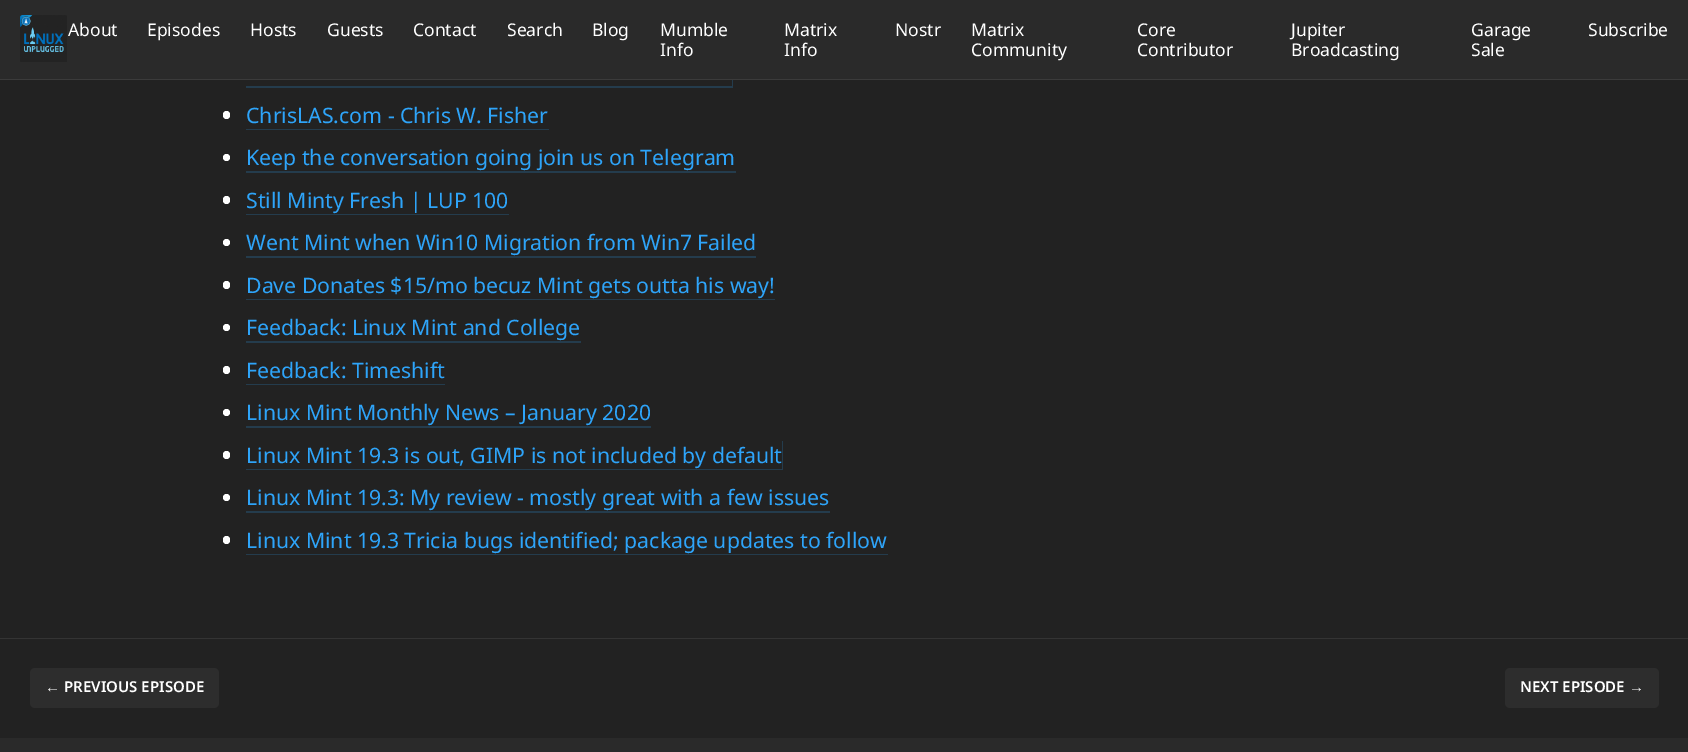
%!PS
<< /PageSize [1688 752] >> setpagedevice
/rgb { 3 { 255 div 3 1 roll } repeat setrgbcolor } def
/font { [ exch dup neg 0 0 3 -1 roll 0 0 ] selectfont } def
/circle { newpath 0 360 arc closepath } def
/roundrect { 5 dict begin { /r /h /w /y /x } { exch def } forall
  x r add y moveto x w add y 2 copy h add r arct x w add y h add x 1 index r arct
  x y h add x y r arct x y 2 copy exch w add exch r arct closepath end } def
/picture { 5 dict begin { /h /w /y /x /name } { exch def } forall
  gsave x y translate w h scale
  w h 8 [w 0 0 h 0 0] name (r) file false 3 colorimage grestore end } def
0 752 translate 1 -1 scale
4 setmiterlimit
34 34 34 rgb
0 0 1688 752 rectfill
36 60 77 rgb
246 59 moveto 246 88 lineto 733 88 lineto 733 59 lineto 732 59 lineto 732 86 lineto 246 86 lineto closepath fill
42 42 42 rgb
0 0 1688 79 rectfill
59 59 59 rgb
0 79 1688 1 rectfill
(img/1.rgb) 20 15 47 47 picture
255 255 255 rgb
223 111 7 8 3.5 roundrect fill
36 60 77 rgb
246 101 moveto 246 130 lineto 549 130 lineto 549 101 lineto 549 129 lineto 246 129 lineto closepath fill
255 255 255 rgb
226.5 157.5 3.5 circle fill
36 60 77 rgb
246 144 moveto 246 173 lineto 736 173 lineto 736 171 lineto 246 171 lineto closepath fill
255 255 255 rgb
223 196 7 8 3.5 roundrect fill
36 60 77 rgb
246 186 moveto 246 215 lineto 509 215 lineto 509 186 lineto 509 214 lineto 246 214 lineto closepath fill
255 255 255 rgb
226.5 242.5 3.5 circle fill
36 60 77 rgb
246 229 moveto 246 258 lineto 756 258 lineto 756 256 lineto 246 256 lineto closepath fill
255 255 255 rgb
223 281 7 8 3.5 roundrect fill
36 60 77 rgb
246 271 moveto 246 300 lineto 775 300 lineto 775 299 lineto 246 299 lineto closepath fill
255 255 255 rgb
226.5 327.5 3.5 circle fill
36 60 77 rgb
246 314 moveto 246 343 lineto 581 343 lineto 581 341 lineto 246 341 lineto closepath fill
255 255 255 rgb
223 366 7 8 3.5 roundrect fill
36 60 77 rgb
246 356 moveto 246 385 lineto 445 385 lineto 445 384 lineto 246 384 lineto closepath fill
255 255 255 rgb
226.5 412.5 3.5 circle fill
36 60 77 rgb
246 399 moveto 246 428 lineto 651 428 lineto 651 426 lineto 246 426 lineto closepath fill
255 255 255 rgb
223 451 7 8 3.5 roundrect fill
36 60 77 rgb
246 441 moveto 246 470 lineto 783 470 lineto 783 441 lineto 782 441 lineto 782 469 lineto 246 469 lineto closepath fill
255 255 255 rgb
226.5 497.5 3.5 circle fill
36 60 77 rgb
246 484 moveto 246 513 lineto 830 513 lineto 830 511 lineto 246 511 lineto closepath fill
255 255 255 rgb
223 536 7 8 3.5 roundrect fill
36 60 77 rgb
246 526 moveto 246 555 lineto 888 555 lineto 888 526 lineto 888 554 lineto 246 554 lineto closepath fill
52 52 52 rgb
0 638 1688 1 rectfill
45 45 45 rgb
30 668 189 40 5 roundrect fill
1505 668 154 40 5 roundrect fill
42 42 42 rgb
0 738 1688 14 rectfill
/NotoSans-Regular 17.5 font
255 255 255 rgb
[
  [(About) 68 36]
  [(Episodes) 147 36]
  [(Hosts) 250 36]
  [(Guests) 327 36]
  [(Contact) 413 36]
  [(Search) 507 36]
  [(Blog) 592 36]
  [(Mumble) 660 36]
  [(Info) 660 56]
  [(Matrix) 784 36]
  [(Info) 784 56]
  [(Nostr) 895 36]
  [(Matrix) 971 36]
  [(Community) 971 56]
  [(Core) 1137 36]
  [(Contributor) 1137 56]
  [(Jupiter) 1291 36]
  [(Broadcasting) 1291 56]
  [(Garage) 1471 36]
  [(Sale) 1471 56]
  [(Subscribe) 1588 36]
] { aload pop moveto show } forall
/NotoSans-Regular 21.25 font
46 164 249 rgb
[
  [(ChrisLAS.com - Chris W. Fisher) 246 123]
  [(Keep the conversation going join us on Telegram) 246 165]
  [(Still Minty Fresh | LUP 100) 246 208]
  [(Went Mint when Win10 Migration from Win7 Failed) 246 250]
  [(Dave Donates $15/mo becuz Mint gets outta his way!) 246 293]
  [(Feedback: Linux Mint and College) 246 335]
  [(Feedback: Timeshift) 246 378]
  [(Linux Mint Monthly News – January 2020) 246 420]
  [(Linux Mint 19.3 is out, GIMP is not included by default) 246 463]
  [(Linux Mint 19.3: My review - mostly great with a few issues) 246 505]
  [(Linux Mint 19.3 Tricia bugs identified; package updates to follow) 246 548]
] { aload pop moveto show } forall
/LiberationSans-Bold 15 font
255 255 255 rgb
45 692 moveto (←) show
/NotoSans-SemiBold 15 font
64 692 moveto (PREVIOUS EPISODE) show
1520 692 moveto (NEXT EPISODE) show
/LiberationSans-Bold 15 font
1629 692 moveto (→) show
showpage
